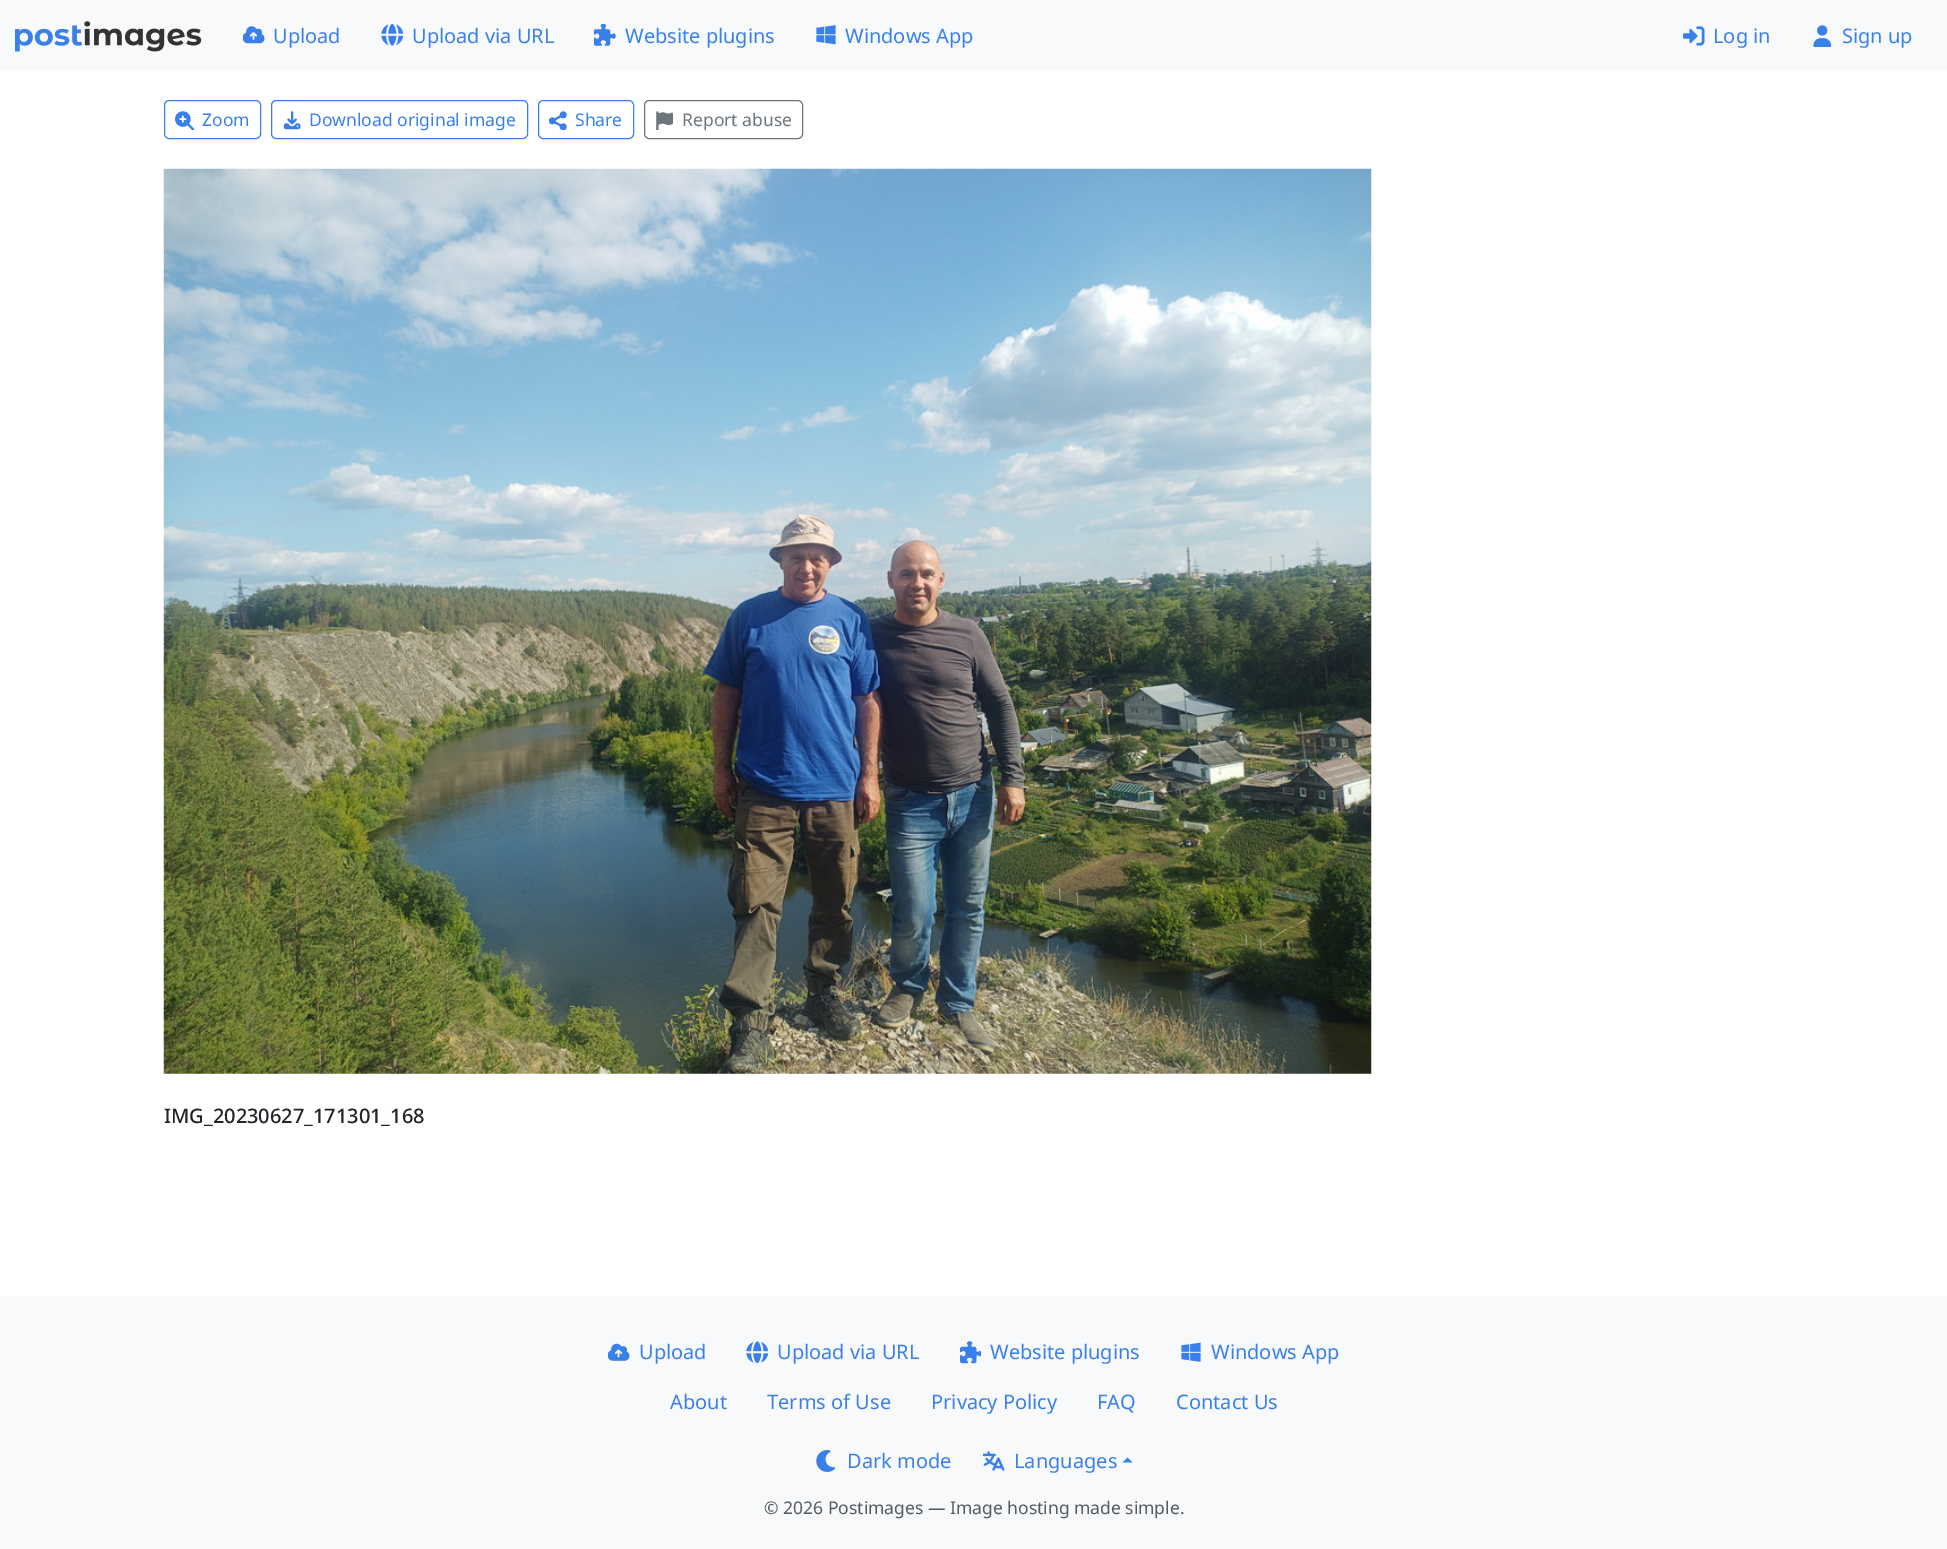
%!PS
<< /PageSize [1947 1549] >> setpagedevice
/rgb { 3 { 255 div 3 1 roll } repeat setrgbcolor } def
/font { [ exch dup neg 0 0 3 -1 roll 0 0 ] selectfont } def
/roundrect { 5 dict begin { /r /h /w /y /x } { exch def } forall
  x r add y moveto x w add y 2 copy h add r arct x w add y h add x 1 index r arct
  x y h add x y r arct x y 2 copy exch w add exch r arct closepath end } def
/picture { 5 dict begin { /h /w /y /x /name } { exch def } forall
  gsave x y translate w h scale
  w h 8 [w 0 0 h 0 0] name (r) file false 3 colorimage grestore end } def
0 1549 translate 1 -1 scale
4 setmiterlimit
255 255 255 rgb
0 0 1947 1549 rectfill
248 249 250 rgb
0 0 1947 70 rectfill
(img/1.rgb) 15 21 187 31 picture
(img/2.rgb) 243 26 22 18 picture
(img/3.rgb) 381 24 22 22 picture
(img/4.rgb) 594 24 22 22 picture
(img/5.rgb) 816 25 20 20 picture
(img/6.rgb) 1683 26 22 20 picture
(img/7.rgb) 1813 25 19 22 picture
58 128 234 rgb
164.5 100.5 96 38 4.5 roundrect stroke
(img/8.rgb) 175 111 19 19 picture
271.5 100.5 256 38 4.5 roundrect stroke
(img/9.rgb) 283 111 18 19 picture
538.5 100.5 95 38 4.5 roundrect stroke
(img/10.rgb) 549 111 18 19 picture
108 117 125 rgb
644.5 100.5 158 38 4.5 roundrect stroke
(img/11.rgb) 656 111 18 19 picture
(img/12.rgb) 163 168 1209 906 picture
248 249 250 rgb
0 1296 1947 253 rectfill
(img/13.rgb) 608 1343 22 18 picture
(img/14.rgb) 746 1341 23 23 picture
(img/15.rgb) 960 1341 21 23 picture
(img/16.rgb) 1181 1342 20 20 picture
(img/17.rgb) 816 1450 20 22 picture
(img/18.rgb) 983 1451 22 20 picture
58 128 234 rgb
1132.5 1462.5 moveto 1122.5 1462.5 lineto 1127.5 1457.5 lineto closepath fill
/NotoSans-Regular 20 font
[
  [(Upload) 273 43]
  [(Upload via URL) 412 43]
  [(Website plugins) 625 43]
  [(Windows App) 845 43]
  [(Log in) 1713 43]
  [(Sign up) 1842 43]
] { aload pop moveto show } forall
/NotoSans-Regular 17.5 font
[
  [(Zoom) 202 126]
  [(Download original image) 309 126]
  [(Share) 575 126]
] { aload pop moveto show } forall
108 117 125 rgb
682 126 moveto (Report abuse) show
/NotoSans-Medium 20 font
33 37 41 rgb
164 1123 moveto (IMG_20230627_171301_168) show
/NotoSans-Regular 20 font
58 128 234 rgb
[
  [(Upload) 639 1359]
  [(Upload via URL) 777 1359]
  [(Website plugins) 990 1359]
  [(Windows App) 1211 1359]
  [(About) 670 1409]
  [(Terms of Use) 767 1409]
  [(Privacy Policy) 931 1409]
  [(FAQ) 1097 1409]
  [(Contact Us) 1176 1409]
  [(Dark mode) 847 1468]
  [(Languages) 1014 1468]
] { aload pop moveto show } forall
/NotoSans-Regular 17.5 font
87 90 93 rgb
764 1514 moveto (© 2026 Postimages — Image hosting made simple.) show
showpage
